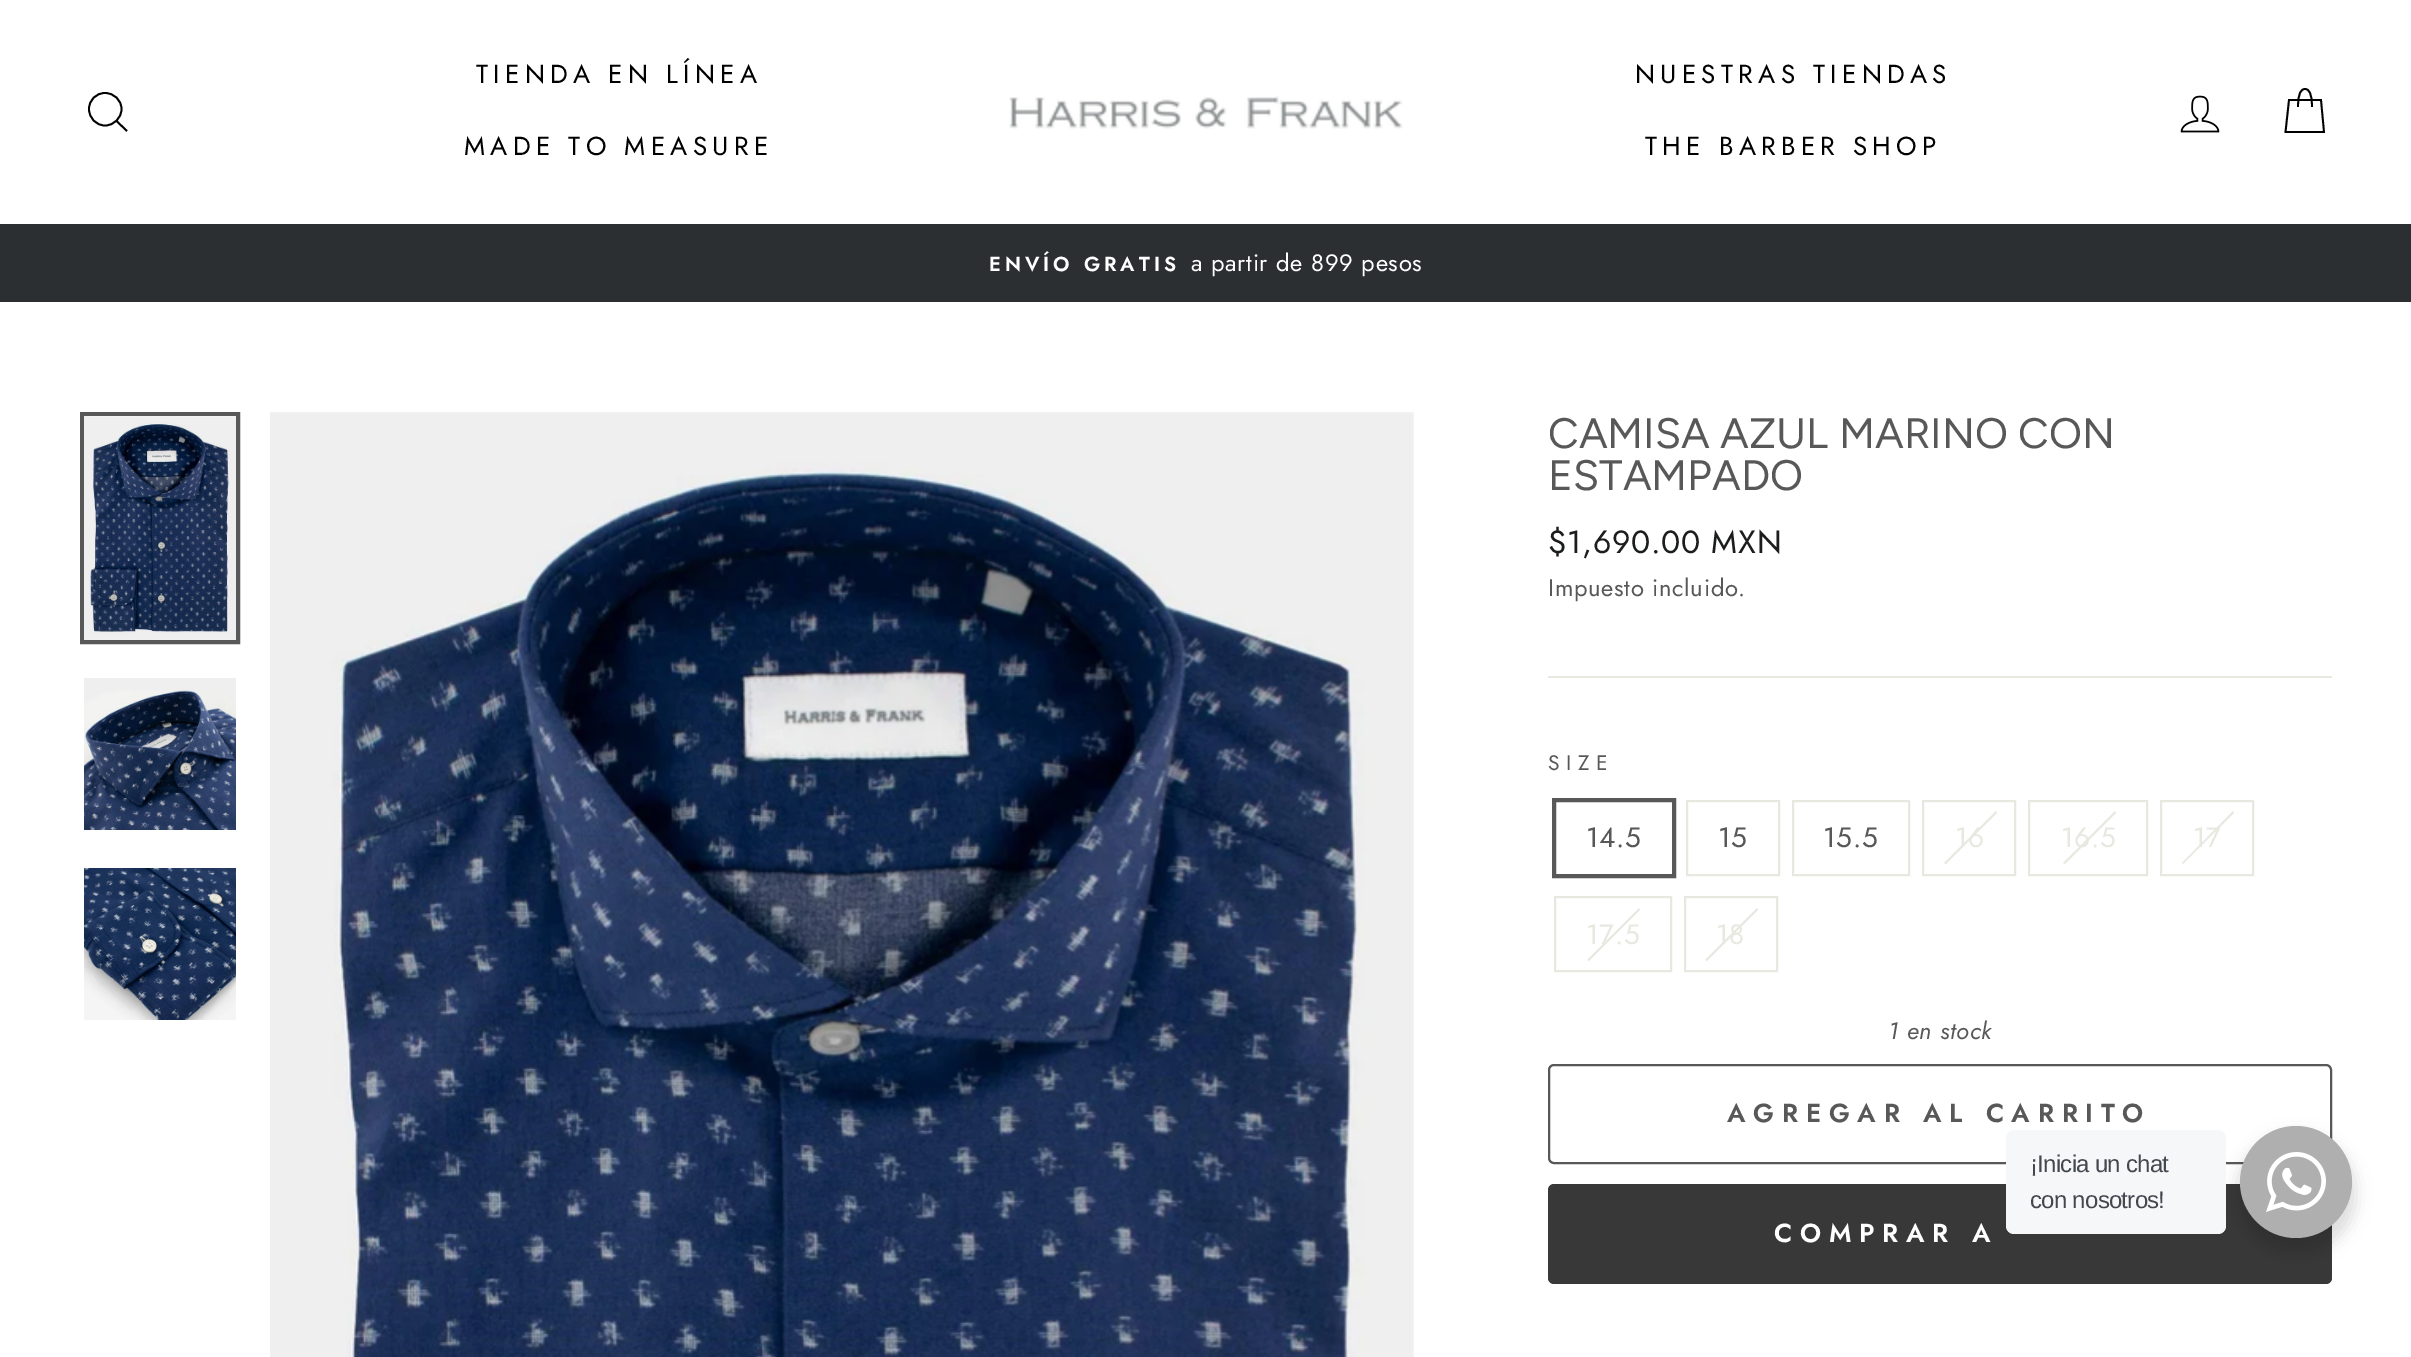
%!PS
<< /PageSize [2411 1357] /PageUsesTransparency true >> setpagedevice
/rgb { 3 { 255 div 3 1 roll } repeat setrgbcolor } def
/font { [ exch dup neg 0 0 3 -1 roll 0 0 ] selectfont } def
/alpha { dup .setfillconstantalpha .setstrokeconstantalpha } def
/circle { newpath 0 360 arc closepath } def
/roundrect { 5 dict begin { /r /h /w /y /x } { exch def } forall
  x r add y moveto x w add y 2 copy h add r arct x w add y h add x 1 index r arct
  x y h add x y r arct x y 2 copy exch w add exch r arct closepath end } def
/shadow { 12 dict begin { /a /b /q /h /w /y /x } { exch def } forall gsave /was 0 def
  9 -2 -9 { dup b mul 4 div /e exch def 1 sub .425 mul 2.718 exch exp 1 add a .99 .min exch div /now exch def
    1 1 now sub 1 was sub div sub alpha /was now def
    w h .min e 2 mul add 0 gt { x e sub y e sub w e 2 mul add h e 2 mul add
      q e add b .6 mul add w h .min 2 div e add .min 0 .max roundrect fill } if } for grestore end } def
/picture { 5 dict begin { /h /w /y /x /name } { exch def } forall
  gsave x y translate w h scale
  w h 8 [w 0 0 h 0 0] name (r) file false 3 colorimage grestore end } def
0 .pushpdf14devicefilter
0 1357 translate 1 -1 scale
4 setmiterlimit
255 255 255 rgb
0 0 2411 1357 rectfill
0 0 0 rgb
1.8 setlinewidth
121.5 109 moveto 121.5 118 114 125.5 105 125.5 curveto 96 125.5 89 118 89 109 curveto 89 100 96 93 105 93 curveto 114 93 121.5 100 121.5 109 curveto closepath 127 131 moveto 116.5 121 lineto stroke
(img/1.rgb) 1009 96 394 33 picture
(img/2.rgb) 2180 95 40 38 picture
2298 107 moveto 2298 93 2301 89 2305 89 curveto 2309 89 2312 93 2312 107 curveto 2289 100 moveto 2321 100 lineto 2324 132 lineto 2285.5 132 lineto closepath stroke
44 47 50 rgb
0 224 2411 78 rectfill
88 88 88 rgb
4 setlinewidth
82 414 156 228 rectstroke
(img/3.rgb) 84 416 152 224 picture
(img/4.rgb) 84 678 152 152 picture
(img/5.rgb) 84 868 152 152 picture
(img/6.rgb) 270 412 1144 945 picture
232 232 225 rgb
1548 676 784 2 rectfill
88 88 88 rgb
1554 800 120 76 rectstroke
232 232 225 rgb
2 setlinewidth
1687 801 92 74 rectstroke
1793 801 116 74 rectstroke
1923 801 92 74 rectstroke
1996 811 moveto 1997 813 lineto 1946 864 lineto 1944 863 lineto closepath fill
2029 801 118 74 rectstroke
2115 811 moveto 2116 813 lineto 2065 864 lineto 2063 863 lineto closepath fill
2161 801 92 74 rectstroke
2233 811 moveto 2234 813 lineto 2183 864 lineto 2182 863 lineto closepath fill
1555 897 116 74 rectstroke
1639 908 moveto 1640 910 lineto 1589 961 lineto 1587 960 lineto closepath fill
1685 897 92 74 rectstroke
1757 908 moveto 1758 910 lineto 1707 961 lineto 1705 960 lineto closepath fill
88 88 88 rgb
1549 1065 782 98 5 roundrect stroke
56 56 56 rgb
1548 1184 784 100 6 roundrect fill
0 0 0 rgb
2236 1134 120 120 60 8 0.14 shadow
245 247 249 rgb
2006 1130 220 104 8 roundrect fill
175 175 175 rgb
2296 1182 56 circle fill
(img/7.rgb) 2266 1152 60 60 picture
/Jost-Regular 26 font
0 0 0 rgb
476 83 moveto 5.25 0 (TIENDA EN LÍNEA) ashow
464 155 moveto 5.25 0 (MADE TO MEASURE) ashow
1635 83 moveto 5.25 0 (NUESTRAS TIENDAS) ashow
1645 155 moveto 5.25 0 (THE BARBER SHOP) ashow
/Jost-SemiBold 20.25 font
255 255 255 rgb
989 271 moveto 4 0 (ENVÍO GRATIS) ashow
/Jost-Regular 23.75 font
1191 271 moveto 0.7 0 (a partir de 899 pesos) ashow
/Figtree-Regular 42.5 font
88 88 88 rgb
1548 448 moveto (CAMISA AZUL MARINO CON) show
1548 490 moveto (ESTAMPADO) show
/Jost-Regular 32 font
28 29 29 rgb
1548 553 moveto 0.7 0 ($1,690.00 MXN) ashow
/Jost-Regular 23.75 font
88 88 88 rgb
1548 596 moveto 0.7 0 (Impuesto incluido.) ashow
/Jost-Regular 21 font
1548 770 moveto 6.5 0 (SIZE) ashow
/Jost-Regular 28 font
1586 847 moveto 0.7 0 (14.5) ashow
1718 847 moveto 0.7 0 (15) ashow
1823 847 moveto 0.7 0 (15.5) ashow
232 232 225 rgb
1955 847 moveto 0.7 0 (16) ashow
2061 847 moveto 0.7 0 (16.5) ashow
2193 847 moveto 0.7 0 (17) ashow
1586 944 moveto 0.7 0 (17.5) ashow
1716 944 moveto 0.7 0 (18) ashow
/Jost-Italic 23.75 font
88 88 88 rgb
1888 1039 moveto 0.7 0 (1 en stock) ashow
/Jost-SemiBold 26 font
1727 1122 moveto 7.75 0 (AGREGAR AL CARRITO) ashow
255 255 255 rgb
1774 1242 moveto 7.75 0 (COMPRAR A) ashow
/LiberationSans-Regular 24 font
67 71 78 rgb
2030 1172 moveto -0.75 0 (¡Inicia un chat) ashow
2030 1208 moveto -0.75 0 (con nosotros!) ashow
.poppdf14devicefilter showpage
